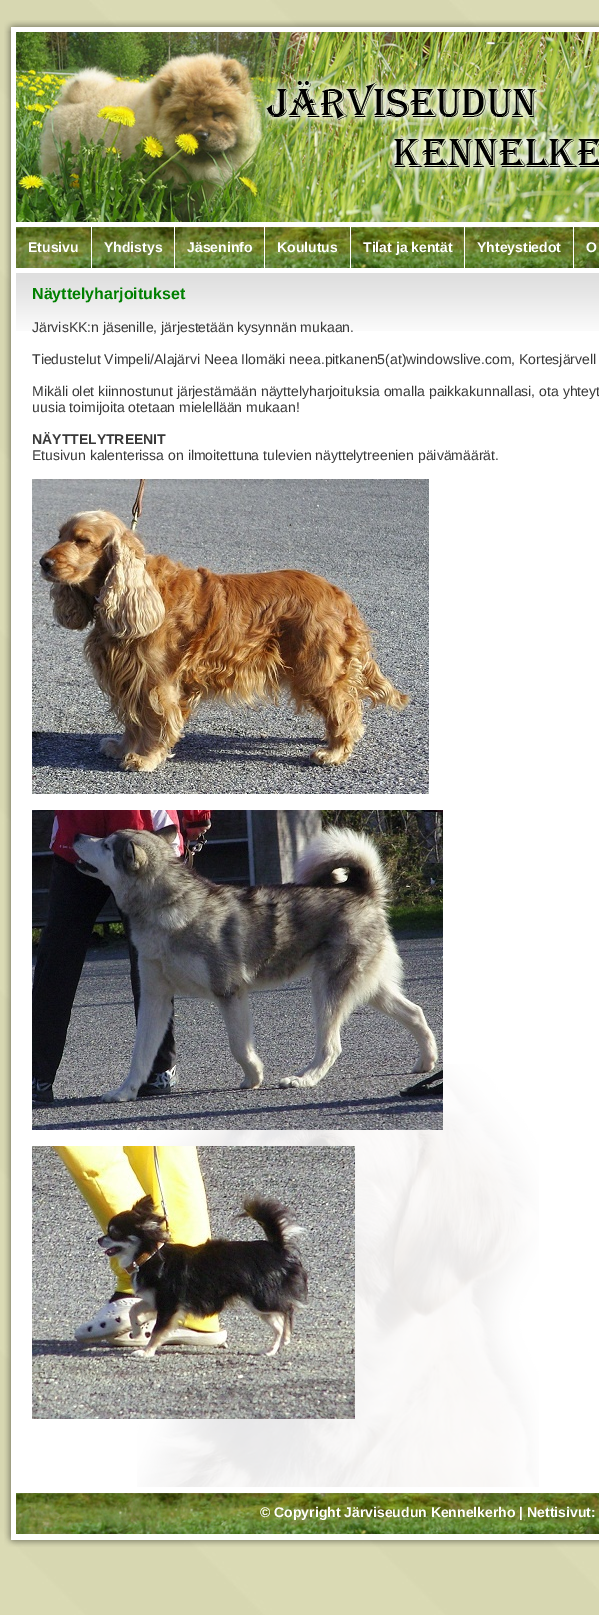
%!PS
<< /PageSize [599 1615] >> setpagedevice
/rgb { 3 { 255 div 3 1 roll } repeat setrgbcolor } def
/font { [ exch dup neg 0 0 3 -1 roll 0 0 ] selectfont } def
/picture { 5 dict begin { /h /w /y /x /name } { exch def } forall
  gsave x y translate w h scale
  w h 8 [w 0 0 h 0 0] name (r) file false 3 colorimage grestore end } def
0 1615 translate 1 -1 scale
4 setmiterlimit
255 255 255 rgb
0 0 599 1615 rectfill
(img/1.rgb) 0 0 599 1615 picture
(img/2.rgb) 4 20 595 253 picture
[
  [91 227 1 41 255 255 255]
  [174 227 1 41 255 255 255]
  [264 227 1 41 255 255 255]
  [350 227 1 41 255 255 255]
  [464 227 1 41 255 255 255]
  [573 227 1 41 255 255 255]
] { aload pop rgb rectfill } forall
(img/3.rgb) 4 273 595 1214 picture
(img/4.rgb) 16 273 583 58 picture
(img/5.rgb) 137 1064 402 423 picture
(img/6.rgb) 32 479 397 315 picture
(img/7.rgb) 32 810 411 320 picture
(img/8.rgb) 32 1146 323 273 picture
(img/9.rgb) 4 1487 595 60 picture
/LiberationSans-Bold 14 font
[
  [(Etusivu) 28 252]
  [(Yhdistys) 104 252]
  [(Jäseninfo) 187 252]
  [(Koulutus) 277 252]
  [(Tilat ja kentät) 363 252]
  [(Yhteystiedot) 477 252]
  [(O) 586 252]
] { aload pop moveto show } forall
/LiberationSans-Bold 16 font
0 128 0 rgb
32 299 moveto (Näyttelyharjoitukset) show
/LiberationSans-Regular 14 font
56 56 56 rgb
[
  [(JärvisKK:n jäsenille, järjestetään kysynnän mukaan.) 32 332]
  [(Tiedustelut Vimpeli/Alajärvi Neea Ilomäki neea.pitkanen5\(at\)windowslive.com, Kortesjärvell) 32 364]
  [(Mikäli olet kiinnostunut järjestämään näyttelyharjoituksia omalla paikkakunnallasi, ota yhteyt) 32 396]
  [(uusia toimijoita otetaan mielellään mukaan!) 32 412]
] { aload pop moveto show } forall
/LiberationSans-Bold 14 font
32 444 moveto (NÄYTTELYTREENIT) show
/LiberationSans-Regular 14 font
32 460 moveto (Etusivun kalenterissa on ilmoitettuna tulevien näyttelytreenien päivämäärät.) show
/LiberationSans-Bold 14 font
255 255 255 rgb
260 1517 moveto (© Copyright Järviseudun Kennelkerho | Nettisivut:) show
showpage
